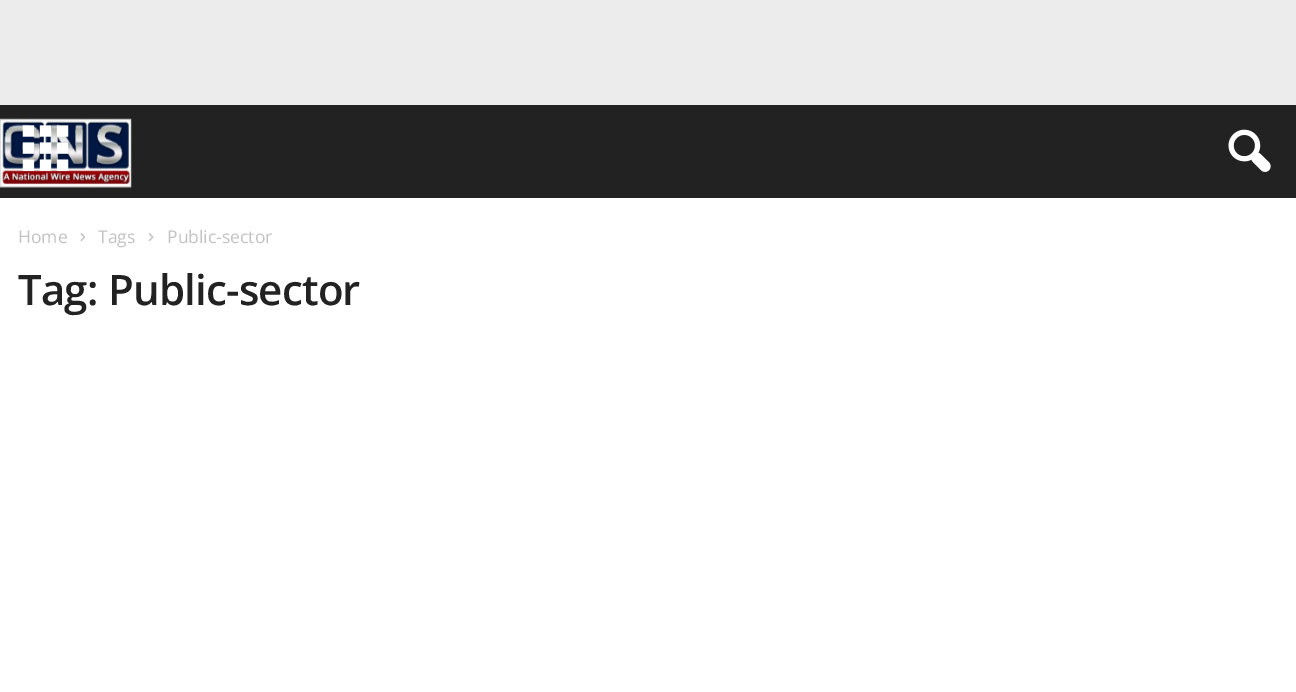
%!PS
<< /PageSize [1296 692] >> setpagedevice
/rgb { 3 { 255 div 3 1 roll } repeat setrgbcolor } def
/font { [ exch dup neg 0 0 3 -1 roll 0 0 ] selectfont } def
/picture { 5 dict begin { /h /w /y /x /name } { exch def } forall
  gsave x y translate w h scale
  w h 8 [w 0 0 h 0 0] name (r) file false 3 colorimage grestore end } def
0 692 translate 1 -1 scale
4 setmiterlimit
236 236 236 rgb
0 0 1296 692 rectfill
34 34 34 rgb
0 105 1296 93 rectfill
(img/1.rgb) 0 118 132 70 picture
(img/2.rgb) 22 125 47 46 picture
(img/3.rgb) 1228 129 43 43 picture
255 255 255 rgb
0 198 1296 494 rectfill
(img/4.rgb) 80 233 6 9 picture
(img/5.rgb) 148 233 6 9 picture
/OpenSans-Regular 17.5 font
195 195 195 rgb
[
  [(Home) 18 243]
  [(Tags) 98 243]
  [(Public-sector) 167 243]
] { aload pop moveto show } forall
/OpenSans-SemiBold 42 font
34 34 34 rgb
18 305 moveto -0.8 0 (Tag: Public-sector) ashow
showpage
